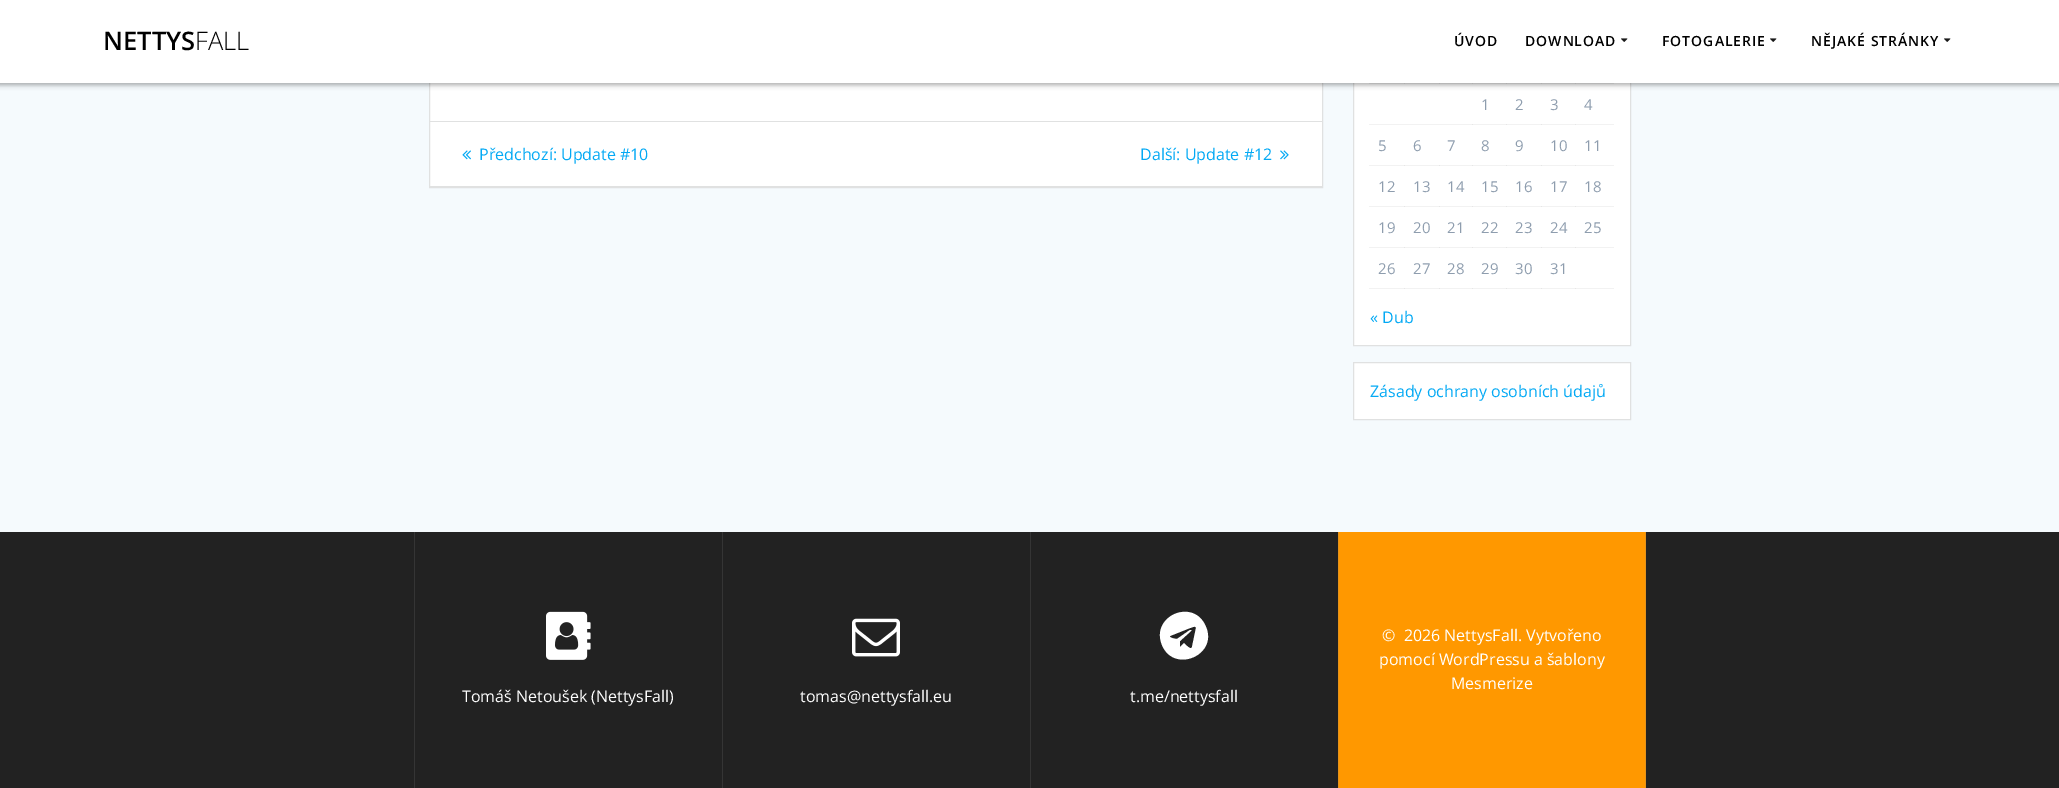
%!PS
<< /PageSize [2059 788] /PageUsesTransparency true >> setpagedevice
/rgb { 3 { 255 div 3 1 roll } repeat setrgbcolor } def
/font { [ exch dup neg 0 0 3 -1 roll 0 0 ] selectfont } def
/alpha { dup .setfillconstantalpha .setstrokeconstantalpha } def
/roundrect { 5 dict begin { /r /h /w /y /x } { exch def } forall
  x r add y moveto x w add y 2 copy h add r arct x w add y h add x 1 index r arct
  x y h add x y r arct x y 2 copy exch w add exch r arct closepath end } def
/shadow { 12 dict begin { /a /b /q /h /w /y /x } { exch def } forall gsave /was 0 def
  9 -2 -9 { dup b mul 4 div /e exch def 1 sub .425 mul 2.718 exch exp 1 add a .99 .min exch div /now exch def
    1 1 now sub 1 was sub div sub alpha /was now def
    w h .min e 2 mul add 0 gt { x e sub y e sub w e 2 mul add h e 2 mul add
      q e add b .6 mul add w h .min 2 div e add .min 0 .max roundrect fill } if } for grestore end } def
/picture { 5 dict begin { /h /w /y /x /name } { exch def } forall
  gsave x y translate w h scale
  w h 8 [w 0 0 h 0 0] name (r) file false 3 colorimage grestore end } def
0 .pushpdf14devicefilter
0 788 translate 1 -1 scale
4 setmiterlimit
34 34 34 rgb
0 0 2059 788 rectfill
245 250 253 rgb
0 83 2059 449 rectfill
255 255 255 rgb
430 83 892 103 rectfill
224 225 225 rgb
429.5 -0.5 893 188 rectstroke
[
  [1354 83 276 262 255 255 255]
  [1369 83 207 1 242 242 242]
  [1404 83 1 1 230 230 230]
  [1439 83 1 1 230 230 230]
  [1472 83 1 1 230 230 230]
  [1506 83 1 1 230 230 230]
  [1541 83 1 1 230 230 230]
  [1369 124 207 1 242 242 242]
  [1472 124 1 1 230 230 230]
  [1506 124 1 1 230 230 230]
  [1541 124 1 1 230 230 230]
  [1369 165 207 1 242 242 242]
  [1404 165 1 1 230 230 230]
  [1439 165 1 1 230 230 230]
  [1472 165 1 1 230 230 230]
  [1506 165 1 1 230 230 230]
  [1541 165 1 1 230 230 230]
  [1369 206 207 1 242 242 242]
  [1404 206 1 1 230 230 230]
  [1439 206 1 1 230 230 230]
  [1472 206 1 1 230 230 230]
  [1506 206 1 1 230 230 230]
  [1541 206 1 1 230 230 230]
  [1369 247 207 1 242 242 242]
  [1404 247 1 1 230 230 230]
  [1439 247 1 1 230 230 230]
  [1472 247 1 1 230 230 230]
  [1506 247 1 1 230 230 230]
  [1541 247 1 1 230 230 230]
  [1369 288 207 1 242 242 242]
  [1404 288 1 1 230 230 230]
  [1439 288 1 1 230 230 230]
  [1472 288 1 1 230 230 230]
  [1506 288 1 1 230 230 230]
  [1541 288 1 1 230 230 230]
] { aload pop rgb rectfill } forall
224 225 225 rgb
1353.5 2.5 277 343 rectstroke
242 242 242 rgb
1575 83 39 1 rectfill
230 230 230 rgb
1575 83 1 1 rectfill
0 0 0 rgb
-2 -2 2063 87 0 2.5 0.33 shadow
255 255 255 rgb
0 0 2059 83 rectfill
(img/1.rgb) 1621 38 7 4 picture
(img/1.rgb) 1770 38 7 4 picture
(img/1.rgb) 1944 38 7 4 picture
224 225 225 rgb
430 121 892 1 rectfill
430 186 892 1 rectfill
(img/2.rgb) 462 150 9 10 picture
(img/3.rgb) 1280 150 9 10 picture
[
  [1575 124 39 1 242 242 242]
  [1575 124 1 1 230 230 230]
  [1575 165 39 1 242 242 242]
  [1575 165 1 1 230 230 230]
  [1575 206 39 1 242 242 242]
  [1575 206 1 1 230 230 230]
  [1575 247 39 1 242 242 242]
  [1575 247 1 1 230 230 230]
  [1575 288 39 1 242 242 242]
  [1575 288 1 1 230 230 230]
] { aload pop rgb rectfill } forall
255 255 255 rgb
1353.5 362.5 moveto 1630.5 362.5 lineto 1630.5 419.5 lineto 1353.5 419.5 lineto closepath gsave fill grestore
224 225 225 rgb
stroke
[
  [1339 532 306 256 255 152 0]
  [1645 532 1 256 230 147 26]
  [1338 532 1 256 230 147 26]
  [414 532 1 256 53 53 53]
] { aload pop rgb rectfill } forall
(img/4.rgb) 546 611 45 49 picture
722 532 1 256 rectfill
(img/5.rgb) 852 618 48 39 picture
1030 532 1 256 rectfill
255 255 255 rgb
1192 647 moveto 1196 628 lineto 1196 625 1191 628 1190 628 curveto 1170 636 lineto 1169 638 1176 639 1177 639 curveto 1190 630 lineto 1191 630 1192 630 1191 631 curveto 1180 641 lineto 1180 647 lineto 1184 643 lineto 1185 644 1191 651 1192 647 curveto closepath 1206 627 moveto 1218 655 1174 674 1162 645 curveto 1150 616 1194 597 1206 627 curveto closepath fill
/OpenSans-SemiBold 25.5 font
0 0 0 rgb
103 50 moveto (NETTYS) show
/OpenSans-Light 25.5 font
195 50 moveto (FALL) show
/OpenSans-SemiBold 14 font
1454 46 moveto 1 0 (ÚVOD) ashow
1525 46 moveto 1 0 (DOWNLOAD) ashow
1662 46 moveto 1 0 (FOTOGALERIE) ashow
1811 46 moveto 1 0 (NĚJAKÉ STRÁNKY) ashow
/OpenSans-Regular 16 font
3 169 244 rgb
479 160 moveto (Předchozí: Update #10) show
1140 160 moveto (Další: Update #12) show
/OpenSans-Regular 15 font
142 157 174 rgb
[
  [(1) 1481 110]
  [(2) 1515 110]
  [(3) 1550 110]
  [(4) 1584 110]
  [(5) 1378 151]
  [(6) 1413 151]
  [(7) 1447 151]
  [(8) 1481 151]
  [(9) 1515 151]
  [(10) 1550 151]
  [(11) 1584 151]
  [(12) 1378 192]
  [(13) 1413 192]
  [(14) 1447 192]
  [(15) 1481 192]
  [(16) 1515 192]
  [(17) 1550 192]
  [(18) 1584 192]
  [(19) 1378 233]
  [(20) 1413 233]
  [(21) 1447 233]
  [(22) 1481 233]
  [(23) 1515 233]
  [(24) 1550 233]
  [(25) 1584 233]
  [(26) 1378 274]
  [(27) 1413 274]
  [(28) 1447 274]
  [(29) 1481 274]
  [(30) 1515 274]
  [(31) 1550 274]
] { aload pop moveto show } forall
/OpenSans-Regular 16 font
3 169 244 rgb
1370 323 moveto (« Dub) show
1370 397 moveto (Zásady ochrany osobních údajů) show
255 255 255 rgb
[
  [(©  2026 NettysFall. Vytvořeno) 1382 641]
  [(pomocí WordPressu a šablony) 1379 665]
  [(Mesmerize) 1451 689]
  [(Tomáš Netoušek \(NettysFall\)) 462 702]
  [(tomas@nettysfall.eu) 800 702]
  [(t.me/nettysfall) 1130 702]
] { aload pop moveto show } forall
.poppdf14devicefilter showpage
